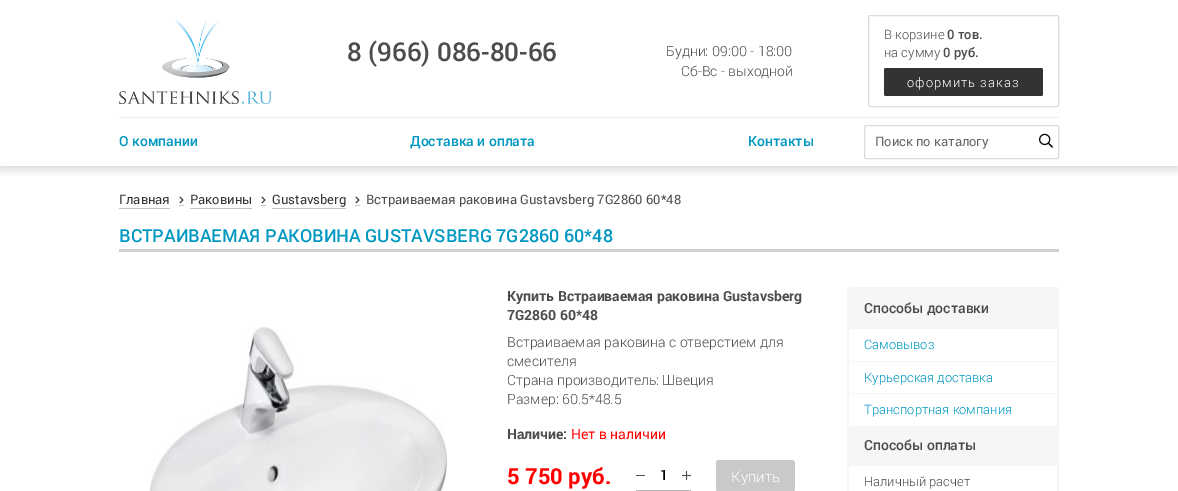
%!PS
<< /PageSize [1178 491] /PageUsesTransparency true >> setpagedevice
/rgb { 3 { 255 div 3 1 roll } repeat setrgbcolor } def
/font { [ exch dup neg 0 0 3 -1 roll 0 0 ] selectfont } def
/alpha { dup .setfillconstantalpha .setstrokeconstantalpha } def
/roundrect { 5 dict begin { /r /h /w /y /x } { exch def } forall
  x r add y moveto x w add y 2 copy h add r arct x w add y h add x 1 index r arct
  x y h add x y r arct x y 2 copy exch w add exch r arct closepath end } def
/shadow { 12 dict begin { /a /b /q /h /w /y /x } { exch def } forall gsave /was 0 def
  9 -2 -9 { dup b mul 4 div /e exch def 1 sub .425 mul 2.718 exch exp 1 add a .99 .min exch div /now exch def
    1 1 now sub 1 was sub div sub alpha /was now def
    w h .min e 2 mul add 0 gt { x e sub y e sub w e 2 mul add h e 2 mul add
      q e add b .6 mul add w h .min 2 div e add .min 0 .max roundrect fill } if } for grestore end } def
/picture { 5 dict begin { /h /w /y /x /name } { exch def } forall
  gsave x y translate w h scale
  w h 8 [w 0 0 h 0 0] name (r) file false 3 colorimage grestore end } def
0 .pushpdf14devicefilter
0 491 translate 1 -1 scale
4 setmiterlimit
255 255 255 rgb
0 0 1178 491 rectfill
gsave
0 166 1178 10 rectclip
50 50 50 rgb
0 3 1178 166 0 5 0.21 shadow
grestore
(img/1.rgb) 119 19 153 85 picture
219 219 219 rgb
868.5 15.5 190 91 1.5 roundrect stroke
51 51 51 rgb
884 68 159 28 2 roundrect fill
238 238 238 rgb
119 117 940 1 rectfill
219 219 219 rgb
864.5 125.5 194 33 1.5 roundrect stroke
(img/2.rgb) 1039 133 14 15 picture
194 194 194 rgb
119 208 51 1 rectfill
179 205 5 1 rectfill
(img/3.rgb) 179 196 5 8 picture
190 208 62 1 rectfill
261 205 5 1 rectfill
(img/3.rgb) 261 196 5 8 picture
272 208 74 1 rectfill
355 205 5 1 rectfill
(img/3.rgb) 355 196 5 8 picture
208 208 208 rgb
119 249 940 3 rectfill
(img/4.rgb) 149 327 299 164 picture
76 76 76 rgb
636 475 9 1 rectfill
183 183 183 rgb
636 490 55 1 rectfill
(img/5.rgb) 682 471 9 9 picture
201 201 201 rgb
716 460 79 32 3 roundrect fill
246 246 246 rgb
2 setlinewidth
848 288 210 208 3 roundrect stroke
[
  [849 289 208 40 246 246 246]
  [849 361 208 1 246 246 246]
  [849 393 208 1 246 246 246]
  [849 426 208 40 246 246 246]
] { aload pop rgb rectfill } forall
/Roboto-Medium 26 font
76 76 76 rgb
347 61 moveto (8 \(966\) 086-80-66) show
/Roboto-Light 14 font
666 56 moveto (Будни: 09:00 - 18:00) show
681 76 moveto (Сб-Вс - выходной) show
/Roboto-Light 13 font
884 39 moveto (В корзине) show
/Roboto-Medium 13 font
947 39 moveto (0 тов.) show
/Roboto-Light 13 font
884 57 moveto (на сумму) show
/Roboto-Medium 13 font
943 57 moveto (0 руб.) show
/Roboto-Light 13 font
255 255 255 rgb
907 87 moveto 1 0 (оформить заказ) ashow
/Roboto-Medium 14 font
0 151 192 rgb
[
  [(О компании) 119 146]
  [(Доставка и оплата) 410 146]
  [(Контакты) 748 146]
] { aload pop moveto show } forall
/Roboto-Regular 13 font
102 102 102 rgb
875 146 moveto (Поиск по каталогу) show
51 51 51 rgb
[
  [(Главная) 119 204]
  [(Раковины) 190 204]
  [(Gustavsberg) 272 204]
] { aload pop moveto show } forall
76 76 76 rgb
366 204 moveto (Встраиваемая раковина Gustavsberg 7G2860 60*48) show
/Roboto-Medium 18 font
0 151 192 rgb
119 242 moveto (ВСТРАИВАЕМАЯ РАКОВИНА GUSTAVSBERG 7G2860 60*48) show
/Roboto-Bold 14 font
76 76 76 rgb
507 301 moveto (Купить Встраиваемая раковина Gustavsberg) show
507 320 moveto (7G2860 60*48) show
/Roboto-Light 14 font
[
  [(Встраиваемая раковина с отверстием для) 507 347]
  [(смесителя) 507 366]
  [(Страна производитель: Швеция) 507 385]
  [(Размер: 60.5*48.5) 507 404]
] { aload pop moveto show } forall
/Roboto-Bold 14 font
507 439 moveto (Наличие:) show
/Roboto-Regular 14 font
255 0 0 rgb
571 439 moveto (Нет в наличии) show
/Roboto-Bold 22 font
507 484 moveto (5 750 руб.) show
/Roboto-Medium 14 font
0 0 0 rgb
660 480 moveto (1) show
/Roboto-Light 15 font
255 255 255 rgb
731 482 moveto (Купить) show
/Roboto-Medium 14 font
76 76 76 rgb
864 313 moveto (Способы доставки) show
/Roboto-Light 13 font
0 151 192 rgb
[
  [(Самовывоз) 864 349]
  [(Курьерская доставка) 864 382]
  [(Транспортная компания) 864 414]
] { aload pop moveto show } forall
/Roboto-Medium 14 font
76 76 76 rgb
864 450 moveto (Способы оплаты) show
/Roboto-Light 13 font
864 486 moveto (Наличный расчет) show
.poppdf14devicefilter showpage
